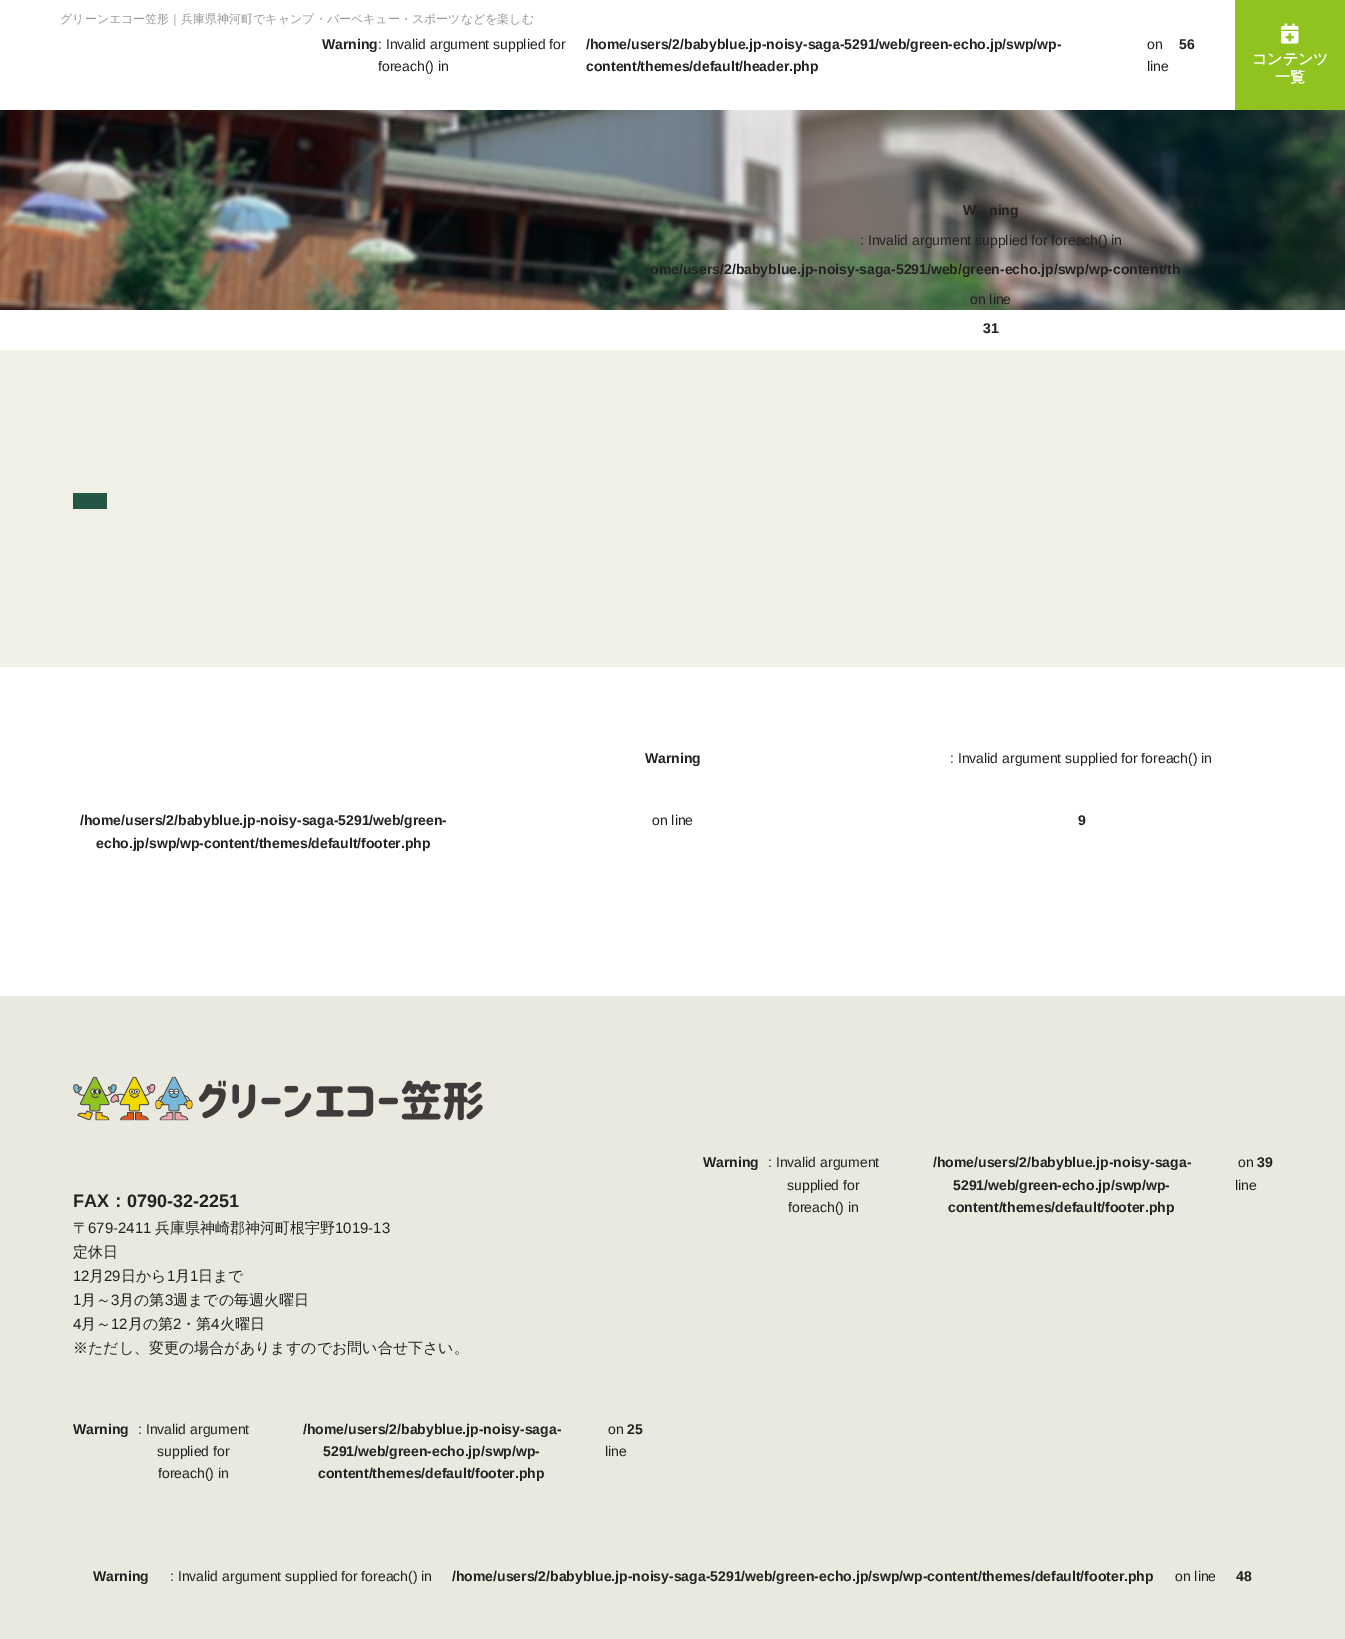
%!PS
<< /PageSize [1345 1639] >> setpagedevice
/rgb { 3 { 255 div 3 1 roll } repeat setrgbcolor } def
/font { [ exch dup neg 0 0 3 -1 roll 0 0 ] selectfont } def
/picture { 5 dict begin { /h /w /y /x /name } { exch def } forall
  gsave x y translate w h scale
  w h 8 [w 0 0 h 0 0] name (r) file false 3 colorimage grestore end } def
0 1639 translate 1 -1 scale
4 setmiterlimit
255 255 255 rgb
0 0 1345 1639 rectfill
144 195 31 rgb
1235 0 110 110 rectfill
(img/1.rgb) 1281 23 18 21 picture
(img/2.rgb) 0 110 1345 200 picture
[
  [0 350 1345 317 240 240 231]
  [73 493 34 16 36 87 67]
  [0 996 1345 643 233 233 224]
] { aload pop rgb rectfill } forall
(img/3.rgb) 73 1076 410 45 picture
/WenQuanYiZenHei-Medium 12 font
153 153 153 rgb
60 23 moveto (グリーンエコー笠形｜兵庫県神河町でキャンプ・バーベキュー・スポーツなどを楽しむ) show
/LiberationSans-Bold 14 font
34 34 34 rgb
322 49 moveto (Warning) show
/LiberationSans-Regular 14 font
378 49 moveto (: Invalid argument supplied for) show
/LiberationSans-Bold 14 font
586 49 moveto (/home/users/2/babyblue.jp-noisy-saga-5291/web/green-echo.jp/swp/wp-) show
586 71 moveto (content/themes/default/header.php) show
/LiberationSans-Regular 14 font
1147 49 moveto (on) show
/LiberationSans-Bold 14 font
1179 49 moveto (56) show
/LiberationSans-Regular 14 font
378 71 moveto (foreach\(\) in) show
1147 71 moveto (line) show
/WenQuanYiZenHei-Bold 15 font
255 255 255 rgb
1252 64 moveto (コンテンツ) show
1275 82 moveto (一覧) show
/LiberationSans-Bold 14 font
34 34 34 rgb
963 215 moveto (W) show
989 215 moveto (ning) show
/LiberationSans-Regular 14 font
860 245 moveto (: Invalid argument supplied for foreach\(\) in) show
/LiberationSans-Bold 14 font
650 274 moveto (ome/users/2/babyblue.jp-noisy-saga-5291/web/green-echo.jp/swp/wp-content/th) show
/LiberationSans-Regular 14 font
970 304 moveto (on line) show
/LiberationSans-Bold 14 font
983 333 moveto (31) show
645 763 moveto (Warning) show
/LiberationSans-Regular 14 font
950 763 moveto (: Invalid argument supplied for foreach\(\) in) show
/LiberationSans-Bold 14 font
80 825 moveto (/home/users/2/babyblue.jp-noisy-saga-5291/web/green-) show
96 848 moveto (echo.jp/swp/wp-content/themes/default/footer.php) show
/LiberationSans-Regular 14 font
652 825 moveto (on line) show
/LiberationSans-Bold 14 font
1078 825 moveto (9) show
703 1167 moveto (Warning) show
/LiberationSans-Regular 14 font
768 1167 moveto (: Invalid argument) show
/LiberationSans-Bold 14 font
[
  [(/home/users/2/babyblue.jp-noisy-saga-) 933 1167]
  [(5291/web/green-echo.jp/swp/wp-) 953 1190]
  [(content/themes/default/footer.php) 948 1212]
] { aload pop moveto show } forall
/LiberationSans-Regular 14 font
1238 1167 moveto (on) show
/LiberationSans-Bold 14 font
1257 1167 moveto (39) show
/LiberationSans-Regular 14 font
[
  [(supplied for) 787 1190]
  [(line) 1235 1190]
  [(foreach\(\) in) 788 1212]
] { aload pop moveto show } forall
/LiberationSans-Bold 18 font
73 1207 moveto (FAX) show
/WenQuanYiZenHei-Bold 18 font
109 1207 moveto (：) show
/LiberationSans-Bold 18 font
127 1207 moveto (0790-32-2251) show
/WenQuanYiZenHei-Medium 15 font
73 1233 moveto (〒) show
/LiberationSans-Regular 15 font
88 1233 moveto (679-2411) show
/WenQuanYiZenHei-Medium 15 font
155 1233 moveto (兵庫県神崎郡神河町根宇野) show
/LiberationSans-Regular 15 font
335 1233 moveto (1019-13) show
/WenQuanYiZenHei-Medium 15 font
73 1257 moveto (定休日) show
/LiberationSans-Regular 15 font
73 1281 moveto (12) show
/WenQuanYiZenHei-Medium 15 font
89 1281 moveto (月) show
/LiberationSans-Regular 15 font
104 1281 moveto (29) show
/WenQuanYiZenHei-Medium 15 font
121 1281 moveto (日から) show
/LiberationSans-Regular 15 font
167 1281 moveto (1) show
/WenQuanYiZenHei-Medium 15 font
175 1281 moveto (月) show
/LiberationSans-Regular 15 font
190 1281 moveto (1) show
/WenQuanYiZenHei-Medium 15 font
198 1281 moveto (日まで) show
/LiberationSans-Regular 15 font
73 1305 moveto (1) show
/WenQuanYiZenHei-Medium 15 font
81 1305 moveto (月～) show
/LiberationSans-Regular 15 font
111 1305 moveto (3) show
/WenQuanYiZenHei-Medium 15 font
119 1305 moveto (月の第) show
/LiberationSans-Regular 15 font
165 1305 moveto (3) show
/WenQuanYiZenHei-Medium 15 font
173 1305 moveto (週までの毎週火曜日) show
/LiberationSans-Regular 15 font
73 1329 moveto (4) show
/WenQuanYiZenHei-Medium 15 font
81 1329 moveto (月～) show
/LiberationSans-Regular 15 font
111 1329 moveto (12) show
/WenQuanYiZenHei-Medium 15 font
128 1329 moveto (月の第) show
/LiberationSans-Regular 15 font
173 1329 moveto (2) show
/WenQuanYiZenHei-Medium 15 font
181 1329 moveto (・第) show
/LiberationSans-Regular 15 font
211 1329 moveto (4) show
/WenQuanYiZenHei-Medium 15 font
220 1329 moveto (火曜日) show
73 1353 moveto (※ただし、変更の場合がありますのでお問い合せ下さい。) show
/LiberationSans-Bold 14 font
73 1434 moveto (Warning) show
/LiberationSans-Regular 14 font
138 1434 moveto (: Invalid argument) show
/LiberationSans-Bold 14 font
[
  [(/home/users/2/babyblue.jp-noisy-saga-) 303 1434]
  [(5291/web/green-echo.jp/swp/wp-) 323 1456]
  [(content/themes/default/footer.php) 318 1478]
] { aload pop moveto show } forall
/LiberationSans-Regular 14 font
608 1434 moveto (on) show
/LiberationSans-Bold 14 font
627 1434 moveto (25) show
/LiberationSans-Regular 14 font
[
  [(supplied for) 157 1456]
  [(line) 605 1456]
  [(foreach\(\) in) 158 1478]
] { aload pop moveto show } forall
/LiberationSans-Bold 14 font
93 1581 moveto (Warning) show
/LiberationSans-Regular 14 font
170 1581 moveto (: Invalid argument supplied for foreach\(\) in) show
/LiberationSans-Bold 14 font
452 1581 moveto (/home/users/2/babyblue.jp-noisy-saga-5291/web/green-echo.jp/swp/wp-content/themes/default/footer.php) show
/LiberationSans-Regular 14 font
1175 1581 moveto (on line) show
/LiberationSans-Bold 14 font
1236 1581 moveto (48) show
showpage
